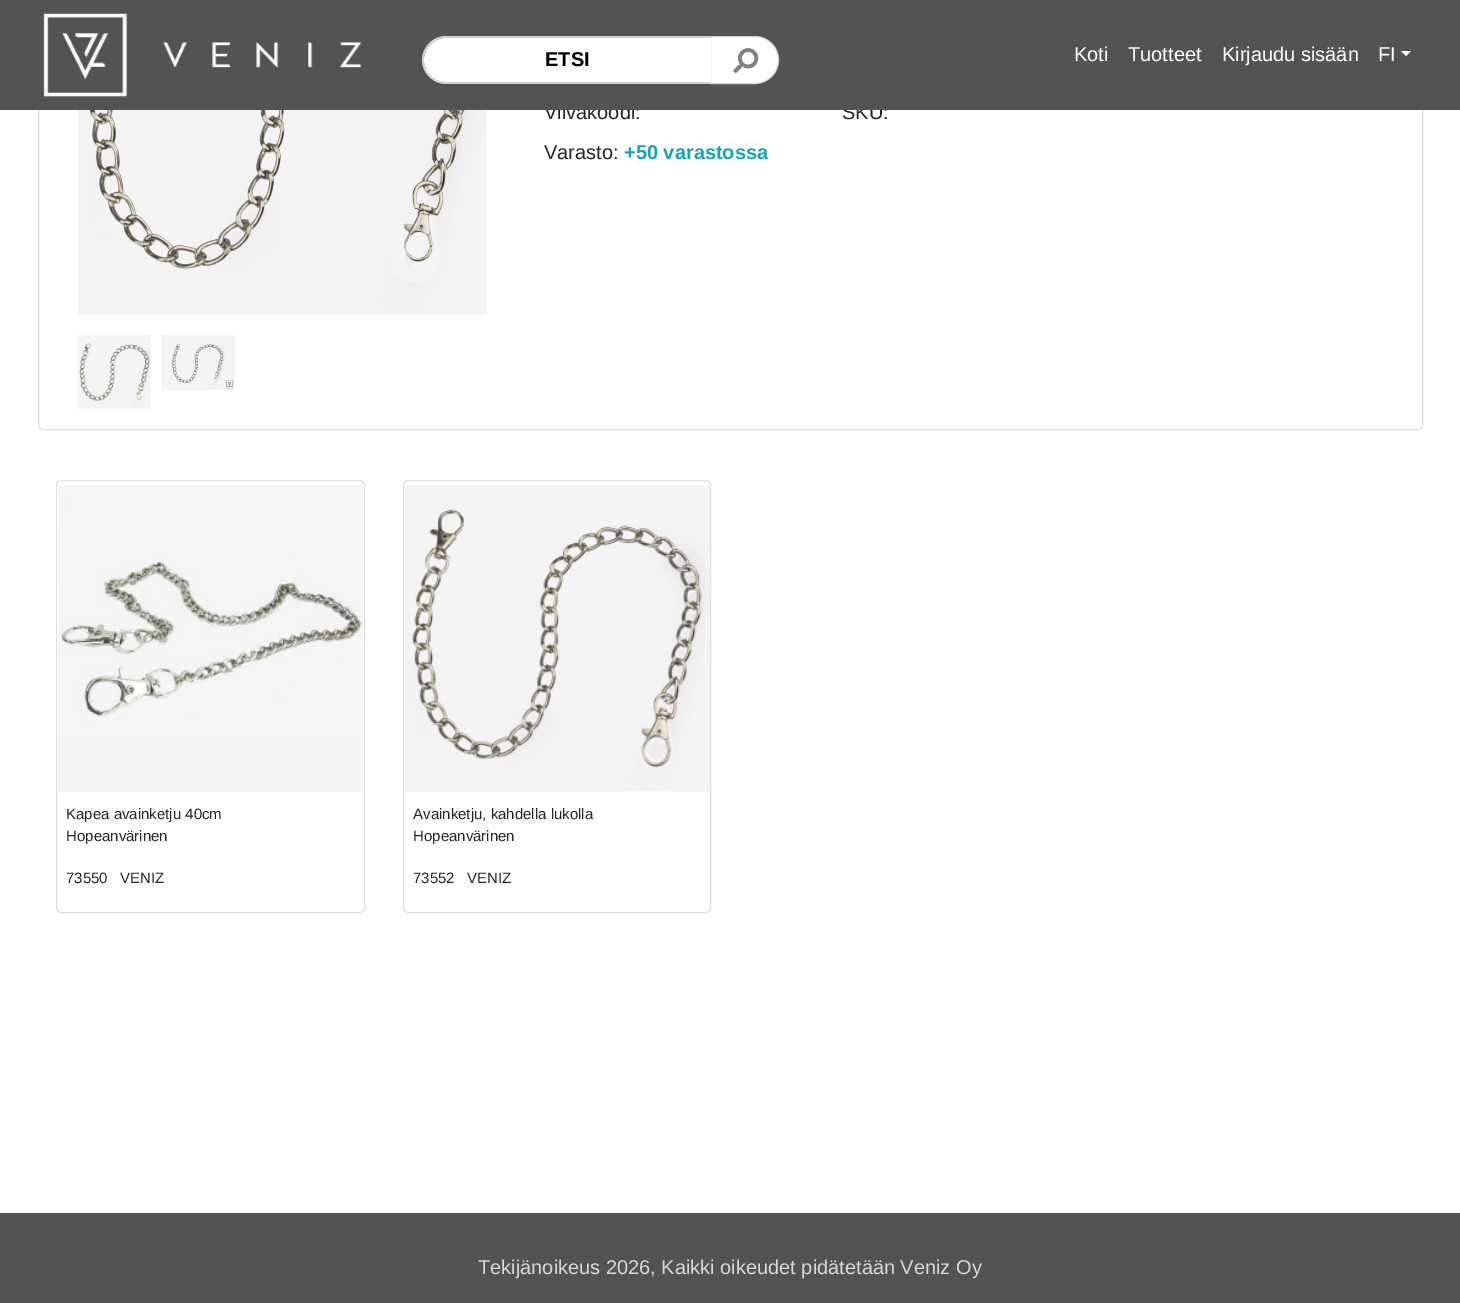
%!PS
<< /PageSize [1460 1303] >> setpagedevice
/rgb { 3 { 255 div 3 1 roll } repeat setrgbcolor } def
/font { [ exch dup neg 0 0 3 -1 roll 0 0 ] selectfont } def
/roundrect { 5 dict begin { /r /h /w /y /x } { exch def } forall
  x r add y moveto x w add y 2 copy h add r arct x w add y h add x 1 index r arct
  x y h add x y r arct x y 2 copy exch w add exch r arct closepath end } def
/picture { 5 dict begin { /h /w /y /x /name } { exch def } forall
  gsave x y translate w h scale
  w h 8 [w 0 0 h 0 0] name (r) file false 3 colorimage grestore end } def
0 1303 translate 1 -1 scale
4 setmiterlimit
255 255 255 rgb
0 0 1460 1303 rectfill
223 223 223 rgb
38.5 -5.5 1384 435 4.5 roundrect stroke
(img/3.rgb) 78 110 409 205 picture
(img/4.rgb) 77 335 74 74 picture
(img/5.rgb) 161 335 74 55 picture
56.5 480.5 308 432 4.5 roundrect stroke
(img/6.rgb) 57 485 307 307 picture
403.5 480.5 307 432 4.5 roundrect stroke
(img/7.rgb) 404 485 306 307 picture
83 83 83 rgb
0 1213 1460 90 rectfill
/LiberationSans-Regular 20 font
33 37 41 rgb
544 119 moveto (Viivakoodi:) show
842 119 moveto (SKU:) show
83 83 83 rgb
0 0 1460 110 rectfill
255 255 255 rgb
710.5 36.5 moveto 755 36.5 lineto 768 36.5 778.5 47 778.5 60 curveto 778.5 73 768 83.5 755 83.5 curveto 710.5 83.5 lineto closepath gsave fill grestore
211 211 211 rgb
stroke
(img/2.rgb) 733 48 26 26 picture
255 255 255 rgb
1401 51 moveto 1411 51 lineto 1406 56 lineto closepath fill
1378 61 moveto (FI) show
446.5 38 moveto 711 38 lineto 711 83 lineto 446.5 83 lineto 434 83 424 73 424 60.5 curveto 424 48 434 38 446.5 38 curveto closepath fill
206 212 218 rgb
446 36 moveto 711 36 lineto 711 84 lineto 446 84 lineto 433 84 422 73 422 60 curveto 422 47 433 36 446 36 curveto closepath 446 38 moveto 711 38 lineto 711 82 lineto 446 82 lineto 434 82 424 72 424 60 curveto 424 48 434 38 446 38 curveto closepath eofill
/LiberationSans-Bold 20 font
0 0 0 rgb
545 66 moveto (ETSI) show
(img/1.rgb) 43 13 319 84 picture
/LiberationSans-Regular 20 font
255 255 255 rgb
[
  [(Kirjaudu sisään) 1222 61]
  [(Tuotteet) 1128 61]
  [(Koti) 1074 61]
] { aload pop moveto show } forall
33 37 41 rgb
544 159 moveto (Varasto:) show
/LiberationSans-Bold 20 font
23 162 184 rgb
624 159 moveto (+50 varastossa) show
/LiberationSans-Regular 15 font
33 37 41 rgb
[
  [(Kapea avainketju 40cm) 66 819]
  [(Hopeanvärinen) 66 841]
  [(73550   VENIZ) 66 883]
  [(Avainketju, kahdella lukolla) 413 819]
  [(Hopeanvärinen) 413 841]
  [(73552   VENIZ) 413 883]
] { aload pop moveto show } forall
/LiberationSans-Regular 20 font
216 216 216 rgb
478 1274 moveto (Tekijänoikeus 2026, Kaikki oikeudet pidätetään Veniz Oy) show
showpage
